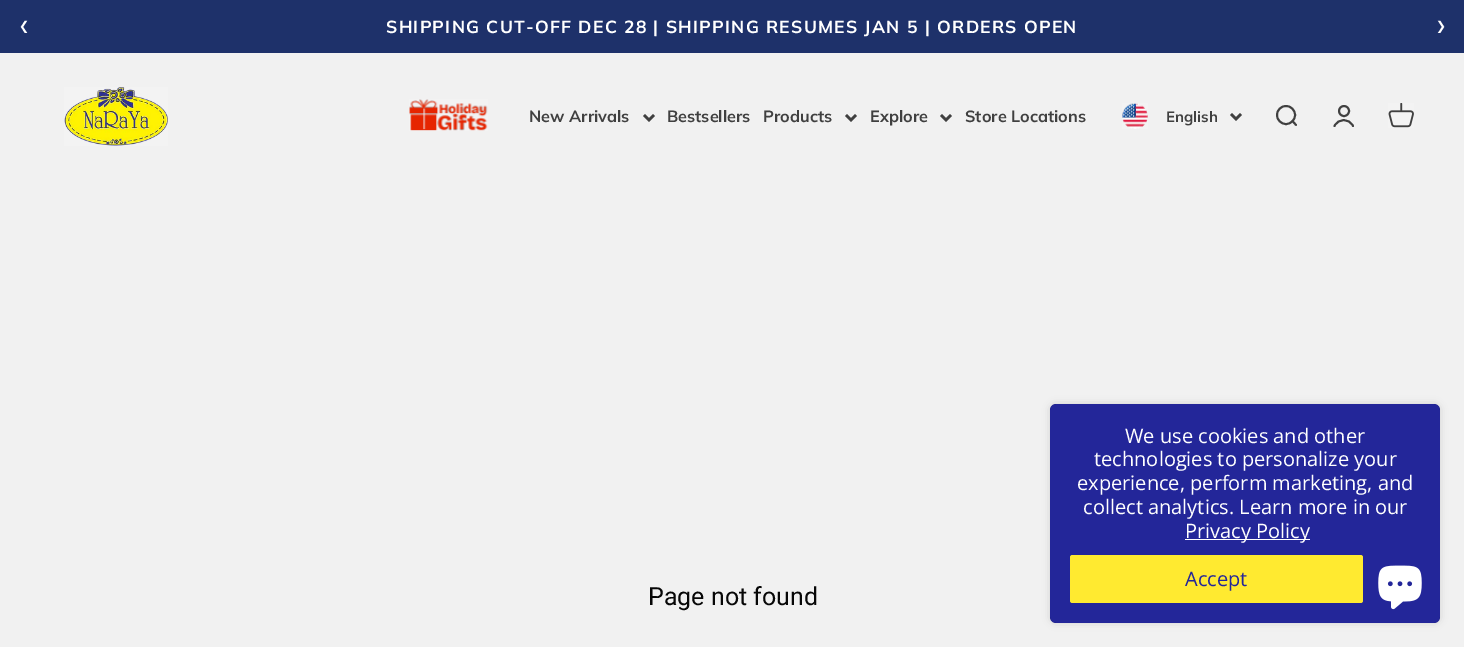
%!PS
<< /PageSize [1464 647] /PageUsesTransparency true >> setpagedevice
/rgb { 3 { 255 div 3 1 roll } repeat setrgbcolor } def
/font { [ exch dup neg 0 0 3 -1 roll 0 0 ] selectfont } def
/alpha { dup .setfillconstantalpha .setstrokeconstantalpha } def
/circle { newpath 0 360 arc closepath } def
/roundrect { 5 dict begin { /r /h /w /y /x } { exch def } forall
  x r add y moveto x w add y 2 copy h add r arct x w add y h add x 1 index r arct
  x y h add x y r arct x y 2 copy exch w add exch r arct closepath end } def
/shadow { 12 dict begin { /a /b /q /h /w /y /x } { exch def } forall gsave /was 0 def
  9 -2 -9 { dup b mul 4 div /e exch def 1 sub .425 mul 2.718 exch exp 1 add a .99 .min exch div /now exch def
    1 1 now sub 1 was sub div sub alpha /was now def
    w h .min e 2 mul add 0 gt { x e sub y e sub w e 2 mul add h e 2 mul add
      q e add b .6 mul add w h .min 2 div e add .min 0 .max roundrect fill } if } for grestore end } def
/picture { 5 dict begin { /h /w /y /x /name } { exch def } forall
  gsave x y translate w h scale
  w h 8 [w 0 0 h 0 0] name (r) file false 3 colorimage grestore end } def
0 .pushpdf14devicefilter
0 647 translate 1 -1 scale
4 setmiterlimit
241 241 241 rgb
0 0 1464 647 rectfill
30 49 106 rgb
0 0 1464 53 rectfill
(img/1.rgb) 64 87 104 59 picture
(img/2.rgb) 409 99 79 32 picture
64 64 64 rgb
2.5 setlinewidth
644 115 moveto 649 120 lineto 654 115 lineto stroke
846 115 moveto 851 120 lineto 856 115 lineto stroke
941 115 moveto 946 120 lineto 951 115 lineto stroke
(img/3.rgb) 1122 103 26 26 picture
1231 114 moveto 1236 119 lineto 1241 114 lineto stroke
1.9 setlinewidth
1286 115 9 circle stroke
1 setlinecap
1 setlinejoin
1292.5 121 moveto 1296 125 lineto stroke
0 setlinecap
0 setlinejoin
1344 111 5 circle stroke
1 setlinecap
1334.5 126 moveto 1338.5 118 1349 118 1353 126 curveto stroke
(img/4.rgb) 1388 103 26 25 picture
35 38 153 rgb
1050 404 390 219 6 roundrect fill
gsave
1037 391 moveto 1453 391 lineto 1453 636 lineto 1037 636 lineto closepath 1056 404 moveto 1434 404 lineto 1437.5 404 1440 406.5 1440 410 curveto 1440 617 lineto 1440 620.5 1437.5 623 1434 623 curveto 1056 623 lineto 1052.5 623 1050 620.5 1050 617 curveto 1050 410 lineto 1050 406.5 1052.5 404 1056 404 curveto closepath eoclip newpath
0 0 0 rgb
1050 404 390 219 6 4 0.12 shadow
grestore
255 255 255 rgb
1185 539 125 1 rectfill
255 234 48 rgb
1070 555 293 48 2.5 roundrect fill
(img/5.rgb) 1378 565 44 45 picture
/DejaVuSans-Regular 12 font
255 255 255 rgb
19 30 moveto (❮) show
/Muli-Bold 17.5 font
386 33 moveto 1.25 0 (SHIPPING CUT-OFF DEC 28 | SHIPPING RESUMES JAN 5 | ORDERS OPEN) ashow
/DejaVuSans-Regular 12 font
1436 30 moveto (❯) show
/Muli-Bold 16.25 font
64 64 64 rgb
[
  [(New Arrivals) 529 122]
  [(Bestsellers) 667 122]
  [(Products) 763 122]
  [(Explore) 870 122]
  [(Store Locations) 965 122]
] { aload pop moveto show } forall
/Muli-Bold 15 font
1166 122 moveto (English) show
/OpenSans-Regular 20 font
255 255 255 rgb
[
  [(We use cookies and other) 1125 443]
  [(technologies to personalize your) 1094 466]
  [(experience, perform marketing, and) 1077 490]
  [(collect analytics. Learn more in our) 1083 514]
  [(Privacy Policy) 1185 538]
] { aload pop moveto show } forall
35 38 153 rgb
1185 586 moveto (Accept) show
/Roboto-Regular 25 font
7 7 7 rgb
648 605 moveto (Page not found) show
.poppdf14devicefilter showpage
